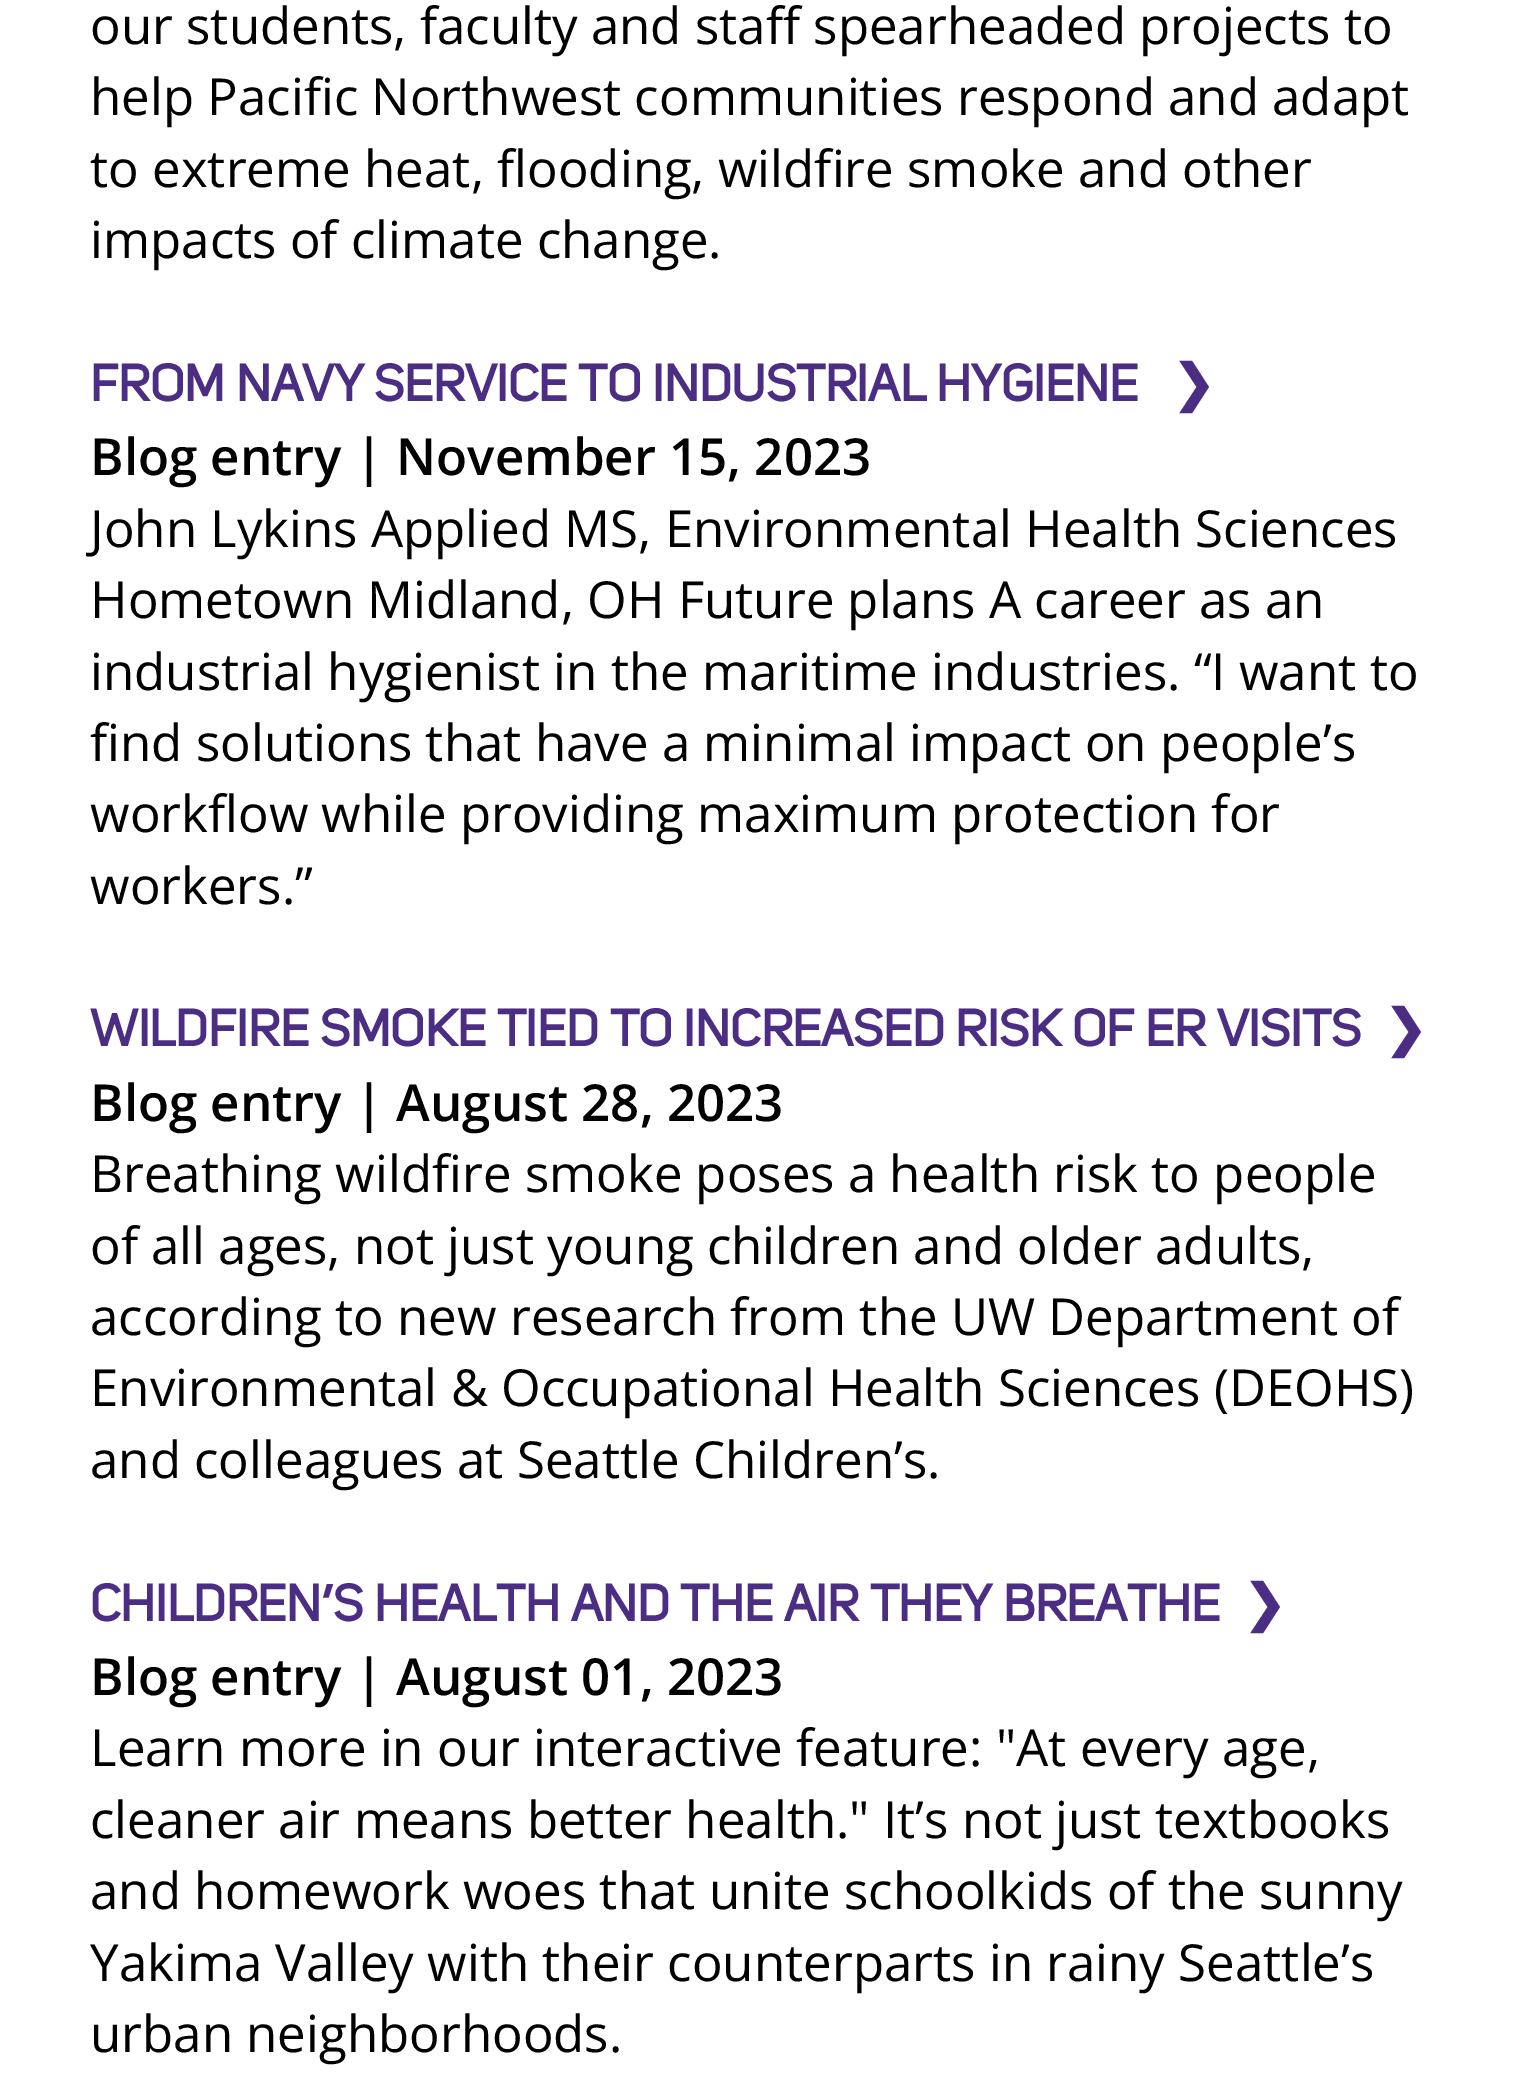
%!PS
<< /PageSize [1516 2094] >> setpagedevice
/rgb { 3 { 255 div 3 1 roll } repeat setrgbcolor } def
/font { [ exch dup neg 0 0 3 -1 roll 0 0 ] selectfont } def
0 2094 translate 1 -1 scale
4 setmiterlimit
255 255 255 rgb
0 0 1516 2094 rectfill
/OpenSans-Regular 51 font
0 0 0 rgb
[
  [(our students, faculty and staff spearheaded projects to) 90 44]
  [(help Pacific Northwest communities respond and adapt) 90 115]
  [(to extreme heat, flooding, wildfire smoke and other) 90 187]
  [(impacts of climate change.) 90 258]
] { aload pop moveto show } forall
/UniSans-Bold 51 font
75 46 131 rgb
90 401 moveto (FROM NAVY SERVICE TO INDUSTRIAL HYGIENE) show
/DejaVuSans-Bold 51 font
1172 401 moveto (❯) show
/OpenSans-SemiBold 51 font
0 0 0 rgb
90 475 moveto (Blog entry | November 15, 2023) show
/OpenSans-Regular 51 font
[
  [(John Lykins Applied MS, Environmental Health Sciences) 90 547]
  [(Hometown Midland, OH Future plans A career as an) 90 618]
  [(industrial hygienist in the maritime industries. “I want to) 90 690]
  [(find solutions that have a minimal impact on people’s) 90 761]
  [(workflow while providing maximum protection for) 90 832]
  [(workers.”) 90 904]
] { aload pop moveto show } forall
/UniSans-Bold 51 font
75 46 131 rgb
90 1046 moveto (WILDFIRE SMOKE TIED TO INCREASED RISK OF ER VISITS) show
/DejaVuSans-Bold 51 font
1384 1046 moveto (❯) show
/OpenSans-SemiBold 51 font
0 0 0 rgb
90 1121 moveto (Blog entry | August 28, 2023) show
/OpenSans-Regular 51 font
[
  [(Breathing wildfire smoke poses a health risk to people) 90 1192]
  [(of all ages, not just young children and older adults,) 90 1264]
  [(according to new research from the UW Department of) 90 1335]
  [(Environmental & Occupational Health Sciences \(DEOHS\)) 90 1406]
  [(and colleagues at Seattle Children’s.) 90 1478]
] { aload pop moveto show } forall
/UniSans-Bold 51 font
75 46 131 rgb
90 1621 moveto (CHILDREN’S HEALTH AND THE AIR THEY BREATHE) show
/DejaVuSans-Bold 51 font
1243 1621 moveto (❯) show
/OpenSans-SemiBold 51 font
0 0 0 rgb
90 1695 moveto (Blog entry | August 01, 2023) show
/OpenSans-Regular 51 font
[
  [(Learn more in our interactive feature: "At every age,) 90 1766]
  [(cleaner air means better health." It’s not just textbooks) 90 1838]
  [(and homework woes that unite schoolkids of the sunny) 90 1909]
  [(Yakima Valley with their counterparts in rainy Seattle’s) 90 1981]
  [(urban neighborhoods.) 90 2052]
] { aload pop moveto show } forall
showpage
